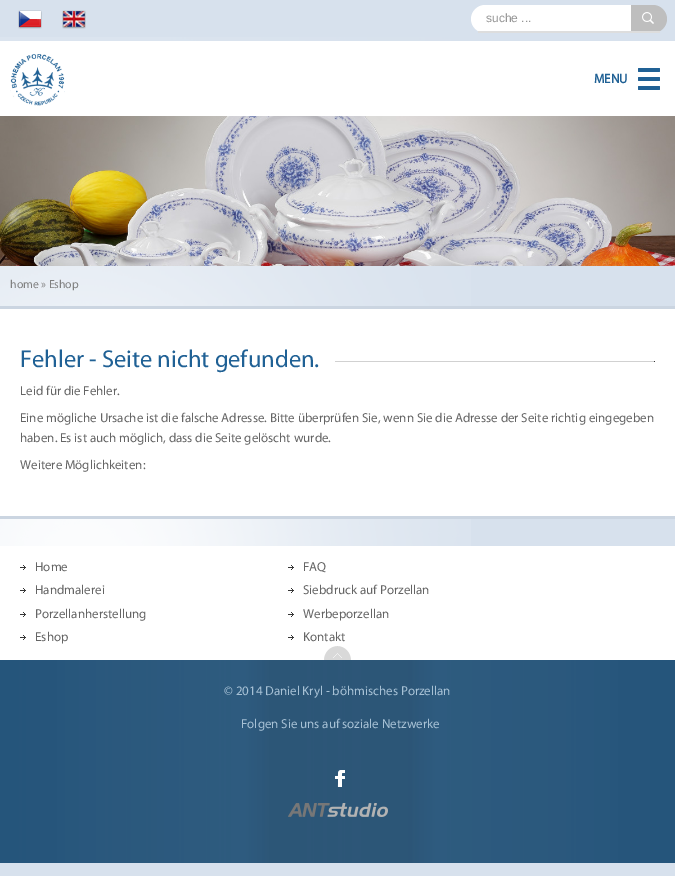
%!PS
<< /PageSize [675 876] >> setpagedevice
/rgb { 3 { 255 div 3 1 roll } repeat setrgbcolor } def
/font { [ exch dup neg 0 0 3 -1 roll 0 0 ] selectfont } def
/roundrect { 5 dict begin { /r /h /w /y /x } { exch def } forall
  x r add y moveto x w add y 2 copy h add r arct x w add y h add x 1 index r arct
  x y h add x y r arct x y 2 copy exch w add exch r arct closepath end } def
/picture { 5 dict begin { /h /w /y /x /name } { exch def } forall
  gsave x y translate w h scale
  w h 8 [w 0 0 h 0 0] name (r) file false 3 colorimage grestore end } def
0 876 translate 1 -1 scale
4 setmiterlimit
215 225 237 rgb
0 0 675 876 rectfill
(img/1.rgb) 0 37 471 509 picture
(img/2.rgb) 18 10 24 19 picture
(img/3.rgb) 62 10 24 19 picture
255 255 255 rgb
485 5 moveto 631 5 lineto 631 33 lineto 485 33 lineto 477.5 33 471 26.5 471 19 curveto 471 11.5 477.5 5 485 5 curveto closepath fill
221 221 221 rgb
478 31 153 2 rectfill
190 190 190 rgb
631 5 moveto 653 5 lineto 660.5 5 667 11.5 667 19 curveto 667 26.5 660.5 33 653 33 curveto 631 33 lineto closepath fill
(img/4.rgb) 642 12 12 12 picture
221 221 221 rgb
631 31 29 2 rectfill
255 255 255 rgb
0 41 675 75 rectfill
(img/5.rgb) 10 54 55 52 picture
(img/6.rgb) 0 116 675 150 picture
32 97 149 rgb
638 68 22 4 1 roundrect fill
638 77 22 4 1 roundrect fill
638 86 22 4 1 roundrect fill
[
  [0 306 675 3 203 213 225]
  [0 309 675 207 255 255 255]
  [0 516 675 3 203 213 225]
] { aload pop rgb rectfill } forall
(img/7.rgb) 335 361 320 1 picture
255 255 255 rgb
0 546 675 114 rectfill
(img/8.rgb) 20 565 6 5 picture
(img/8.rgb) 288 565 6 5 picture
(img/8.rgb) 20 588 6 5 picture
(img/8.rgb) 288 588 6 5 picture
(img/8.rgb) 20 612 6 5 picture
(img/8.rgb) 288 612 6 5 picture
(img/8.rgb) 20 635 6 5 picture
(img/8.rgb) 288 635 6 5 picture
(img/9.rgb) 0 660 675 203 picture
(img/10.rgb) 324 646 27 14 picture
(img/11.rgb) 335 770 10 17 picture
(img/12.rgb) 288 803 100 14 picture
/LiberationSans-Regular 12 font
149 149 149 rgb
486 22 moveto (suche ...) show
/Myriad-Bold 13 font
32 97 149 rgb
594 83 moveto (MENU) show
/Myriad-Regular 11.75 font
128 128 128 rgb
10 288 moveto (home » Eshop) show
/Myriad-Regular 24.5 font
32 97 149 rgb
20 367 moveto (Fehler - Seite nicht gefunden.) show
/Myriad-Regular 13 font
101 101 101 rgb
[
  [(Leid für die Fehler.) 20 395]
  [(Eine mögliche Ursache ist die falsche Adresse. Bitte überprüfen Sie, wenn Sie die Adresse der Seite richtig eingegeben) 20 422]
  [(haben. Es ist auch möglich, dass die Seite gelöscht wurde.) 20 442]
  [(Weitere Möglichkeiten:) 20 469]
  [(Home) 35 571]
  [(FAQ) 303 571]
  [(Handmalerei) 35 594]
  [(Siebdruck auf Porzellan) 303 594]
  [(Porzellanherstellung) 35 618]
  [(Werbeporzellan) 303 618]
  [(Eshop) 35 641]
  [(Kontakt) 303 641]
] { aload pop moveto show } forall
167 193 213 rgb
224 695 moveto (© 2014 Daniel Kryl - böhmisches Porzellan) show
241 728 moveto (Folgen Sie uns auf soziale Netzwerke) show
showpage
